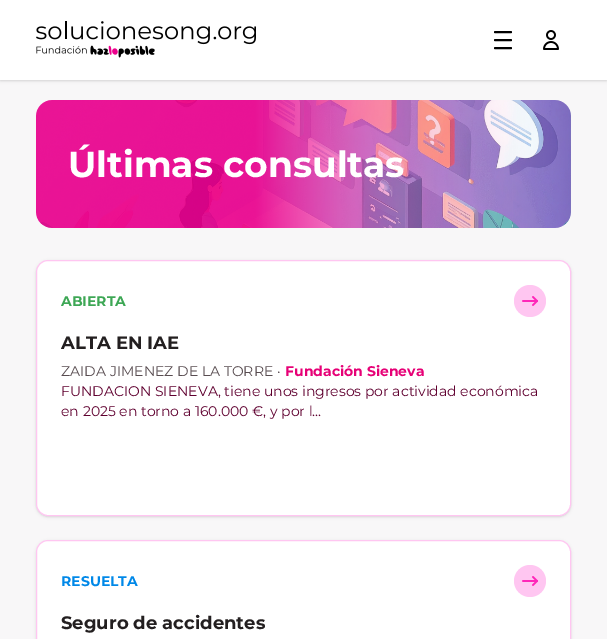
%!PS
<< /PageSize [607 639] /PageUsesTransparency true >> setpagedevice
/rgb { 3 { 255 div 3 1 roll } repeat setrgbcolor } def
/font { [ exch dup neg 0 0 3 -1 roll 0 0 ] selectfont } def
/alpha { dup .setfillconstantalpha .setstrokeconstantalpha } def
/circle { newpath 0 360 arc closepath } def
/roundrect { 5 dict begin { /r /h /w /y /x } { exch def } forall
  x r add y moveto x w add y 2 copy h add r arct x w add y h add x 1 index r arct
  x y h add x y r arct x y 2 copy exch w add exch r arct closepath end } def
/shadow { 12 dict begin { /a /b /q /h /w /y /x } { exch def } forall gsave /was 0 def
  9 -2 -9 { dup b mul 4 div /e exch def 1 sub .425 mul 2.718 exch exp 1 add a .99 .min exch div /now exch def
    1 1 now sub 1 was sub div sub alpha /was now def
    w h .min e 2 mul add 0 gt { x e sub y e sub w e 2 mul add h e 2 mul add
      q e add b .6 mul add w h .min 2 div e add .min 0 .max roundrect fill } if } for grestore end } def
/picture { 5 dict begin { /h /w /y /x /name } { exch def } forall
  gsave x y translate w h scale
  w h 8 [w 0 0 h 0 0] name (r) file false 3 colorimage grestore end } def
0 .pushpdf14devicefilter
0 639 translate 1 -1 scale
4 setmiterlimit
248 247 248 rgb
0 0 607 639 rectfill
0 0 0 rgb
1 2 605 78 0 1 0.1 shadow
0 1 607 80 0 1.5 0.1 shadow
255 255 255 rgb
0 0 607 80 rectfill
(img/1.rgb) 36 21 220 37 picture
0 0 0 rgb
2 setlinewidth
1 setlinecap
1 setlinejoin
495 48 moveto 511 48 lineto 495 40 moveto 511 40 lineto 495 32 moveto 511 32 lineto stroke
(img/2.rgb) 543 30 16 20 picture
(img/3.rgb) 36 100 535 128 picture
37 262 533 254 11 1 0.1 shadow
36 261 535 256 12 1.5 0.1 shadow
255 255 255 rgb
36.5 260.5 534 255 11.5 roundrect gsave fill grestore
255 198 241 rgb
1 setlinewidth
0 setlinecap
0 setlinejoin
stroke
530 301 16 circle fill
(img/4.rgb) 522 296 16 10 picture
0 0 0 rgb
36 541 535 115 12 1.5 0.1 shadow
255 255 255 rgb
36.5 540.5 534 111 11.5 roundrect gsave fill grestore
255 198 241 rgb
stroke
530 581 16 circle fill
(img/4.rgb) 522 576 16 10 picture
/Montserrat-Bold 36 font
255 255 255 rgb
68 177 moveto (Últimas consultas) show
/Montserrat-Bold 14 font
61 167 85 rgb
61 306 moveto (ABIERTA) show
/Montserrat-Bold 18 font
35 31 32 rgb
61 349 moveto (ALTA EN IAE) show
/Montserrat-Regular 14 font
88 76 80 rgb
61 376 moveto (ZAIDA JIMENEZ DE LA TORRE) show
277 376 moveto (·) show
/Montserrat-Bold 14 font
230 0 118 rgb
285 376 moveto (Fundación Sieneva) show
/Montserrat-Regular 14 font
95 0 47 rgb
61 396 moveto (FUNDACION SIENEVA, tiene unos ingresos por actividad económica) show
61 416 moveto (en 2025 en torno a 160.000 €, y por l...) show
/Montserrat-Bold 14 font
0 136 232 rgb
61 586 moveto (RESUELTA) show
/Montserrat-Bold 18 font
35 31 32 rgb
61 629 moveto (Seguro de accidentes) show
.poppdf14devicefilter showpage
